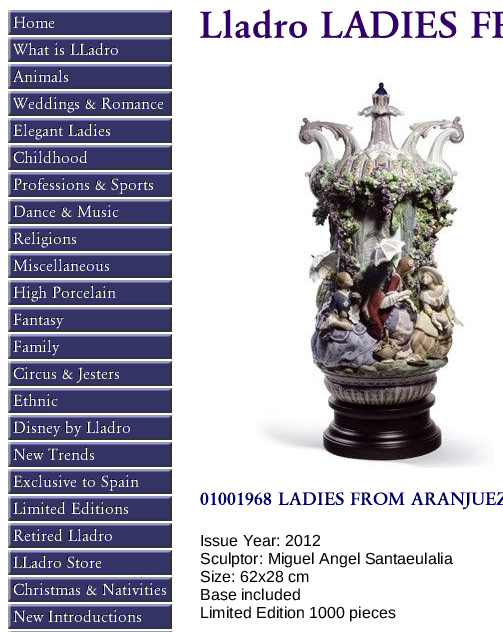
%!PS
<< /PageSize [503 632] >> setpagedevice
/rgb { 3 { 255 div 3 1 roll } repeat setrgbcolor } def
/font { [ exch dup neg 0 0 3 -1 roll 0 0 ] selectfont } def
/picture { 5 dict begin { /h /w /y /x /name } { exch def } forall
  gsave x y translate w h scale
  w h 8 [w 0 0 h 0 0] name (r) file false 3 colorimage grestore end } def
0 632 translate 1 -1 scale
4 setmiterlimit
255 255 255 rgb
0 0 503 632 rectfill
(img/1.rgb) 8 10 164 622 picture
(img/2.rgb) 200 9 303 30 picture
(img/3.rgb) 255 75 239 393 picture
(img/4.rgb) 200 492 303 18 picture
/LiberationSans-Regular 16 font
0 0 0 rgb
[
  [(Issue Year: 2012) 200 546]
  [(Sculptor: Miguel Angel Santaeulalia) 200 564]
  [(Size: 62x28 cm) 200 582]
  [(Base included) 200 600]
  [(Limited Edition 1000 pieces) 200 618]
] { aload pop moveto show } forall
showpage
